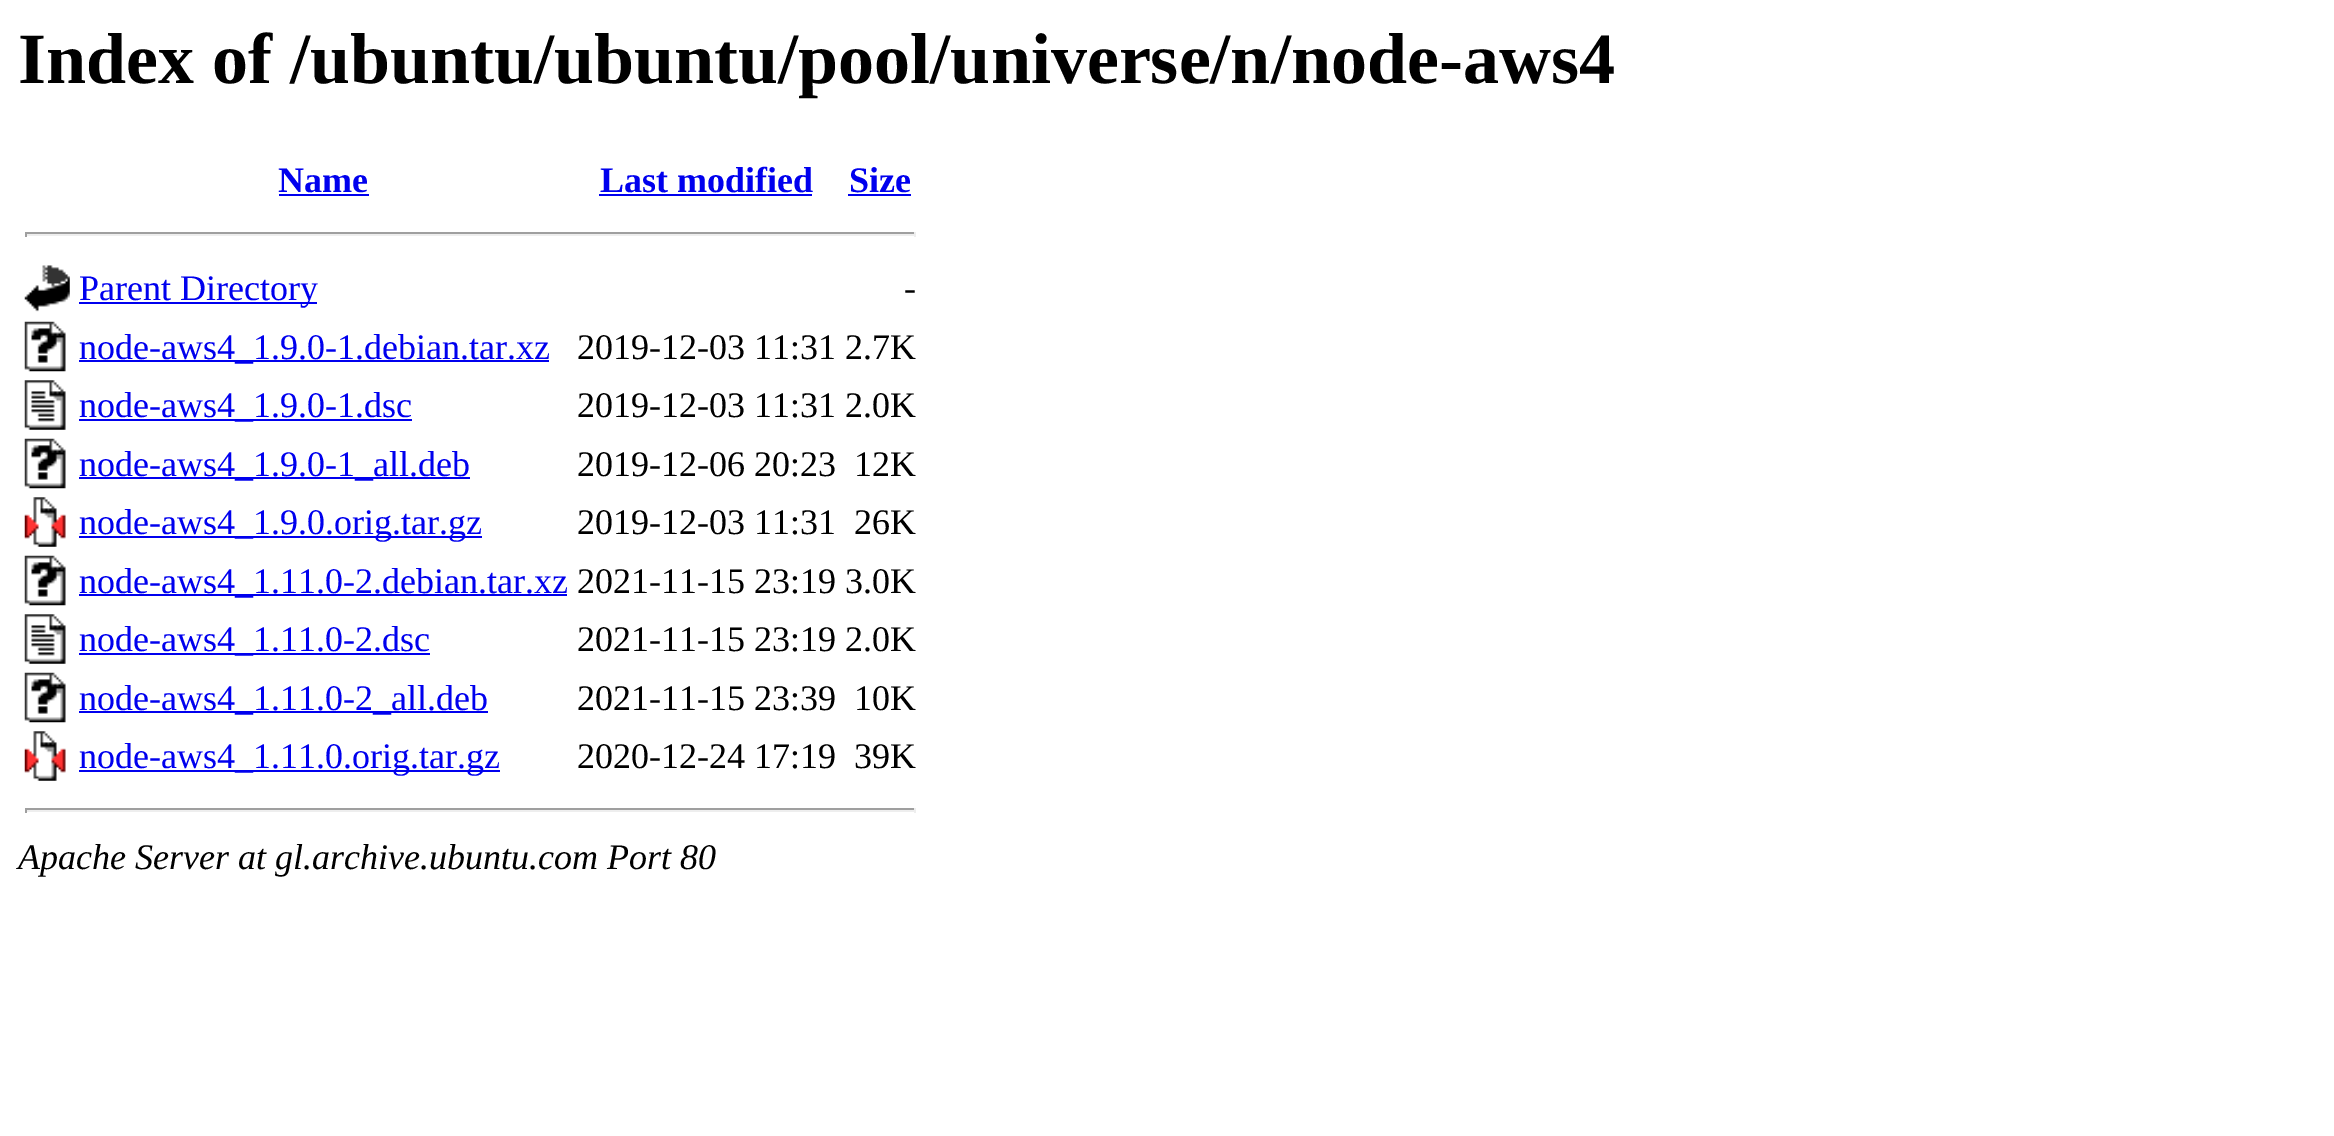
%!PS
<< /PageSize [2334 1136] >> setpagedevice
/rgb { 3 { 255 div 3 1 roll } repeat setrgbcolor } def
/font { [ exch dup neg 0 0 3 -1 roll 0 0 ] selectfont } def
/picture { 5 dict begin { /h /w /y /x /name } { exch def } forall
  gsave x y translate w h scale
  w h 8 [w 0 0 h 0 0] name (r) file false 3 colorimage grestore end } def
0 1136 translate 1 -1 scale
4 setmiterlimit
255 255 255 rgb
0 0 2334 1136 rectfill
[
  [279 194 90 2 0 0 238]
  [599 194 213 2 0 0 238]
  [848 194 63 2 0 0 238]
  [25 232 891 2 159 159 159]
  [914 232 2 5 238 238 238]
  [25 234 891 2 238 238 238]
  [25 232 2 5 159 159 159]
] { aload pop rgb rectfill } forall
(img/1.rgb) 24 265 46 47 picture
0 0 238 rgb
79 302 238 2 rectfill
(img/2.rgb) 24 321 42 51 picture
79 360 470 2 rectfill
(img/3.rgb) 24 380 42 50 picture
79 419 333 2 rectfill
(img/2.rgb) 24 438 42 51 picture
79 477 391 2 rectfill
(img/4.rgb) 24 497 42 50 picture
79 536 403 2 rectfill
(img/5.rgb) 24 555 42 51 picture
79 594 488 2 rectfill
(img/3.rgb) 24 614 42 50 picture
79 653 351 2 rectfill
(img/2.rgb) 24 672 42 51 picture
79 711 409 2 rectfill
(img/4.rgb) 24 731 42 50 picture
[
  [79 770 421 2 0 0 238]
  [25 808 891 2 159 159 159]
  [914 808 2 5 238 238 238]
  [25 810 891 2 238 238 238]
  [25 808 2 5 159 159 159]
] { aload pop rgb rectfill } forall
/LiberationSerif-Bold 72 font
0 0 0 rgb
18 83 moveto (Index of /ubuntu/ubuntu/pool/universe/n/node-aws4) show
/LiberationSerif-Bold 36 font
0 0 238 rgb
[
  [(Name) 278 192]
  [(Last modified) 600 192]
  [(Size) 849 192]
] { aload pop moveto show } forall
/LiberationSerif-Regular 36 font
79 300 moveto (Parent Directory) show
0 0 0 rgb
904 300 moveto (-) show
0 0 238 rgb
79 359 moveto (node-aws4_1.9.0-1.debian.tar.xz) show
0 0 0 rgb
577 359 moveto (2019-12-03 11:31 2.7K) show
0 0 238 rgb
79 417 moveto (node-aws4_1.9.0-1.dsc) show
0 0 0 rgb
577 417 moveto (2019-12-03 11:31 2.0K) show
0 0 238 rgb
79 476 moveto (node-aws4_1.9.0-1_all.deb) show
0 0 0 rgb
577 476 moveto (2019-12-06 20:23) show
854 476 moveto (12K) show
0 0 238 rgb
79 534 moveto (node-aws4_1.9.0.orig.tar.gz) show
0 0 0 rgb
577 534 moveto (2019-12-03 11:31) show
854 534 moveto (26K) show
0 0 238 rgb
79 593 moveto (node-aws4_1.11.0-2.debian.tar.xz) show
0 0 0 rgb
577 593 moveto (2021-11-15 23:19 3.0K) show
0 0 238 rgb
79 651 moveto (node-aws4_1.11.0-2.dsc) show
0 0 0 rgb
577 651 moveto (2021-11-15 23:19 2.0K) show
0 0 238 rgb
79 710 moveto (node-aws4_1.11.0-2_all.deb) show
0 0 0 rgb
577 710 moveto (2021-11-15 23:39) show
854 710 moveto (10K) show
0 0 238 rgb
79 768 moveto (node-aws4_1.11.0.orig.tar.gz) show
0 0 0 rgb
577 768 moveto (2020-12-24 17:19) show
854 768 moveto (39K) show
/LiberationSerif-Italic 36 font
18 869 moveto (Apache Server at gl.archive.ubuntu.com Port 80) show
showpage
